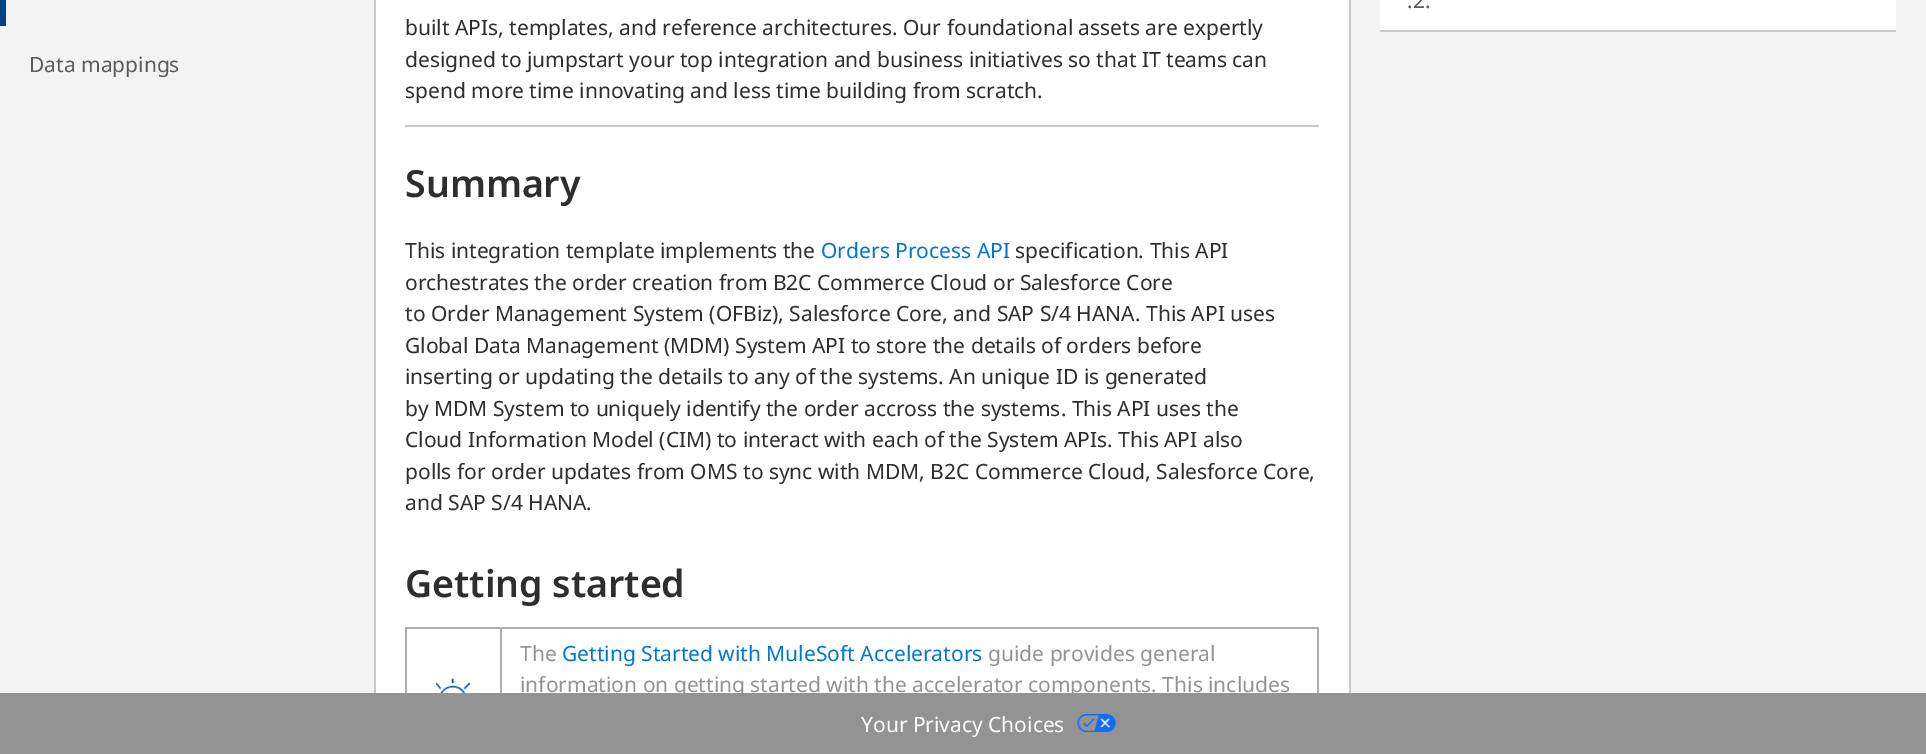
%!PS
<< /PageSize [1926 754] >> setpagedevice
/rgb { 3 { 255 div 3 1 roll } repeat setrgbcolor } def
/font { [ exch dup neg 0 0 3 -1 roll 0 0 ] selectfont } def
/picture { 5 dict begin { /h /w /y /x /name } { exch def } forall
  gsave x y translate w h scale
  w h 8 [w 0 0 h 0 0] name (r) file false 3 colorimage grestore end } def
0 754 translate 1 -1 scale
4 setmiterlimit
255 255 255 rgb
0 0 1926 754 rectfill
[
  [1351 0 575 693 243 243 243]
  [1349 0 2 693 201 201 201]
  [1380 0 516 30 255 255 255]
  [1380 30 516 2 201 201 201]
  [0 0 374 693 243 243 243]
  [374 0 2 693 201 201 201]
  [0 0 6 26 1 68 134]
  [405 125 914 2 201 201 201]
  [500 627 819 2 174 174 174]
  [500 627 2 66 174 174 174]
  [405 627 96 2 174 174 174]
  [405 627 2 66 174 174 174]
] { aload pop rgb rectfill } forall
(img/1.rgb) 430 678 46 15 picture
1317 627 2 66 rectfill
147 147 147 rgb
0 693 1926 61 rectfill
(img/2.rgb) 1077 714 40 18 picture
/NotoSans-Regular 21 font
92 92 92 rgb
1407 8 moveto (.2.) show
29 72 moveto (Data mappings) show
46 46 46 rgb
[
  [(built APIs, templates, and reference architectures. Our foundational assets are expertly) 405 35]
  [(designed to jumpstart your top integration and business initiatives so that IT teams can) 405 67]
  [(spend more time innovating and less time building from scratch.) 405 98]
] { aload pop moveto show } forall
/NotoSans-SemiBold 37.5 font
405 197 moveto (Summary) show
/NotoSans-Regular 21 font
405 258 moveto (This integration template implements the) show
1 118 211 rgb
821 258 moveto (Orders Process API) show
46 46 46 rgb
[
  [(specification. This API) 1015 258]
  [(orchestrates the order creation from B2C Commerce Cloud or Salesforce Core) 405 290]
  [(to Order Management System \(OFBiz\), Salesforce Core, and SAP S/4 HANA. This API uses) 405 321]
  [(Global Data Management \(MDM\) System API to store the details of orders before) 405 353]
  [(inserting or updating the details to any of the systems. An unique ID is generated) 405 384]
  [(by MDM System to uniquely identify the order accross the systems. This API uses the) 405 416]
  [(Cloud Information Model \(CIM\) to interact with each of the System APIs. This API also) 405 447]
  [(polls for order updates from OMS to sync with MDM, B2C Commerce Cloud, Salesforce Core,) 405 479]
  [(and SAP S/4 HANA.) 405 510]
] { aload pop moveto show } forall
/NotoSans-SemiBold 37.5 font
405 597 moveto (Getting started) show
/NotoSans-Regular 21 font
147 147 147 rgb
520 661 moveto (The) show
1 118 211 rgb
562 661 moveto (Getting Started with MuleSoft Accelerators) show
147 147 147 rgb
988 661 moveto (guide provides general) show
520 692 moveto (information on getting started with the accelerator components. This includes) show
255 255 255 rgb
861 732 moveto (Your Privacy Choices) show
showpage
